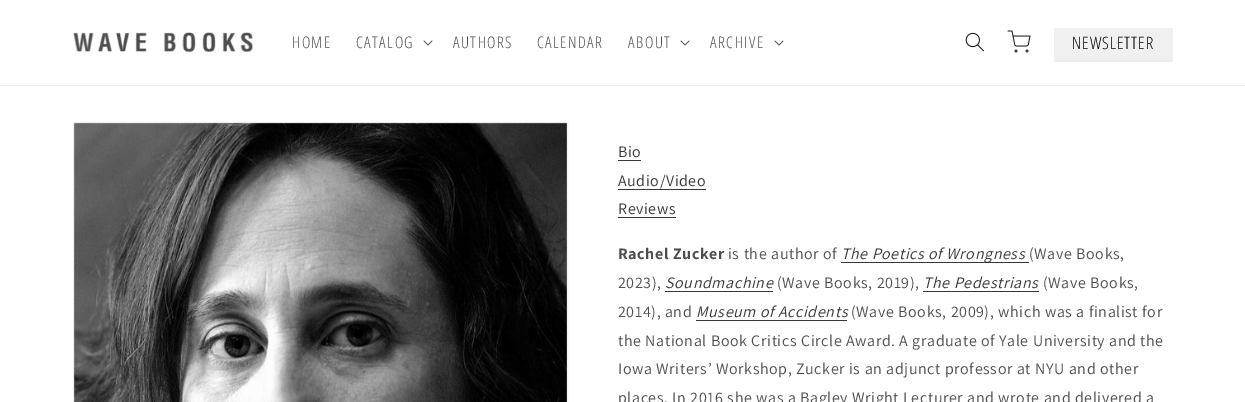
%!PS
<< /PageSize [1245 402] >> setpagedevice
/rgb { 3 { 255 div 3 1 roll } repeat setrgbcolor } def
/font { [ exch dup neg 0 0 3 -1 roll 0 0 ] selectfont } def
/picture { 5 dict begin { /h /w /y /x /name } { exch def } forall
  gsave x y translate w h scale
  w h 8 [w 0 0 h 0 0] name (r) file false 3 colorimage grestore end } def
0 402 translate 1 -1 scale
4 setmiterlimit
255 255 255 rgb
0 0 1245 402 rectfill
236 236 236 rgb
0 85 1245 1 rectfill
(img/1.rgb) 73 32 180 20 picture
(img/2.rgb) 423 40 10 6 picture
(img/2.rgb) 680 40 10 6 picture
(img/2.rgb) 774 40 10 6 picture
(img/3.rgb) 965 32 19 20 picture
(img/4.rgb) 1007 30 24 23 picture
237 237 237 rgb
1054 59 119 3 rectfill
241 240 240 rgb
1054 28 119 31 rectfill
243 243 243 rgb
73.5 122.5 494 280 rectstroke
(img/5.rgb) 73 122 494 280 picture
[
  [618 160 23 1 54 54 54]
  [618 189 88 1 54 54 54]
  [618 217 58 1 54 54 54]
  [841 262 184 1 54 54 54]
  [1025 262 4 1 54 54 54]
  [665 291 108 1 54 54 54]
  [923 291 116 1 54 54 54]
  [696 320 151 1 54 54 54]
] { aload pop rgb rectfill } forall
/OpenSansCondensed-Light 16 font
77 77 77 rgb
292 48 moveto 1.5 0 (HOME) ashow
356 48 moveto 1.5 0 (CATALOG) ashow
453 48 moveto 1.5 0 (AUTHORS) ashow
537 48 moveto 1.5 0 (CALENDAR) ashow
628 48 moveto 1.5 0 (ABOUT) ashow
710 48 moveto 1.5 0 (ARCHIVE) ashow
/OpenSansCondensed-Light 17 font
0 0 0 rgb
1072 49 moveto 1 0 (NEWSLETTER) ashow
/Assistant-Regular 16 font
54 54 54 rgb
618 157 moveto 0.6 0 (Bio) ashow
618 186 moveto 0.6 0 (Audio/Video) ashow
618 214 moveto 0.6 0 (Reviews) ashow
/Assistant-Bold 16 font
77 77 77 rgb
618 259 moveto 0.6 0 (Rachel Zucker) ashow
/Assistant-Regular 16 font
728 259 moveto 0.6 0 (is the author of) ashow
/Assistant-Italic 16 font
54 54 54 rgb
841 259 moveto 0.6 0 (The Poetics of Wrongness) ashow
/Assistant-Regular 16 font
77 77 77 rgb
1029 259 moveto 0.6 0 (\(Wave Books,) ashow
618 288 moveto 0.6 0 (2023\),) ashow
/Assistant-Italic 16 font
54 54 54 rgb
665 288 moveto 0.6 0 (Soundmachine) ashow
/Assistant-Regular 16 font
77 77 77 rgb
777 288 moveto 0.6 0 (\(Wave Books, 2019\),) ashow
/Assistant-Italic 16 font
54 54 54 rgb
923 288 moveto 0.6 0 (The Pedestrians) ashow
/Assistant-Regular 16 font
77 77 77 rgb
1043 288 moveto 0.6 0 (\(Wave Books,) ashow
618 317 moveto 0.6 0 (2014\), and) ashow
/Assistant-Italic 16 font
54 54 54 rgb
696 317 moveto 0.6 0 (Museum of Accidents) ashow
/Assistant-Regular 16 font
77 77 77 rgb
851 317 moveto 0.6 0 (\(Wave Books, 2009\), which was a finalist for) ashow
618 346 moveto 0.6 0 (the National Book Critics Circle Award. A graduate of Yale University and the) ashow
618 374 moveto 0.6 0 (Iowa Writers’ Workshop, Zucker is an adjunct professor at NYU and other) ashow
618 403 moveto 0.6 0 (places. In 2016 she was a Bagley Wright Lecturer and wrote and delivered a) ashow
showpage
